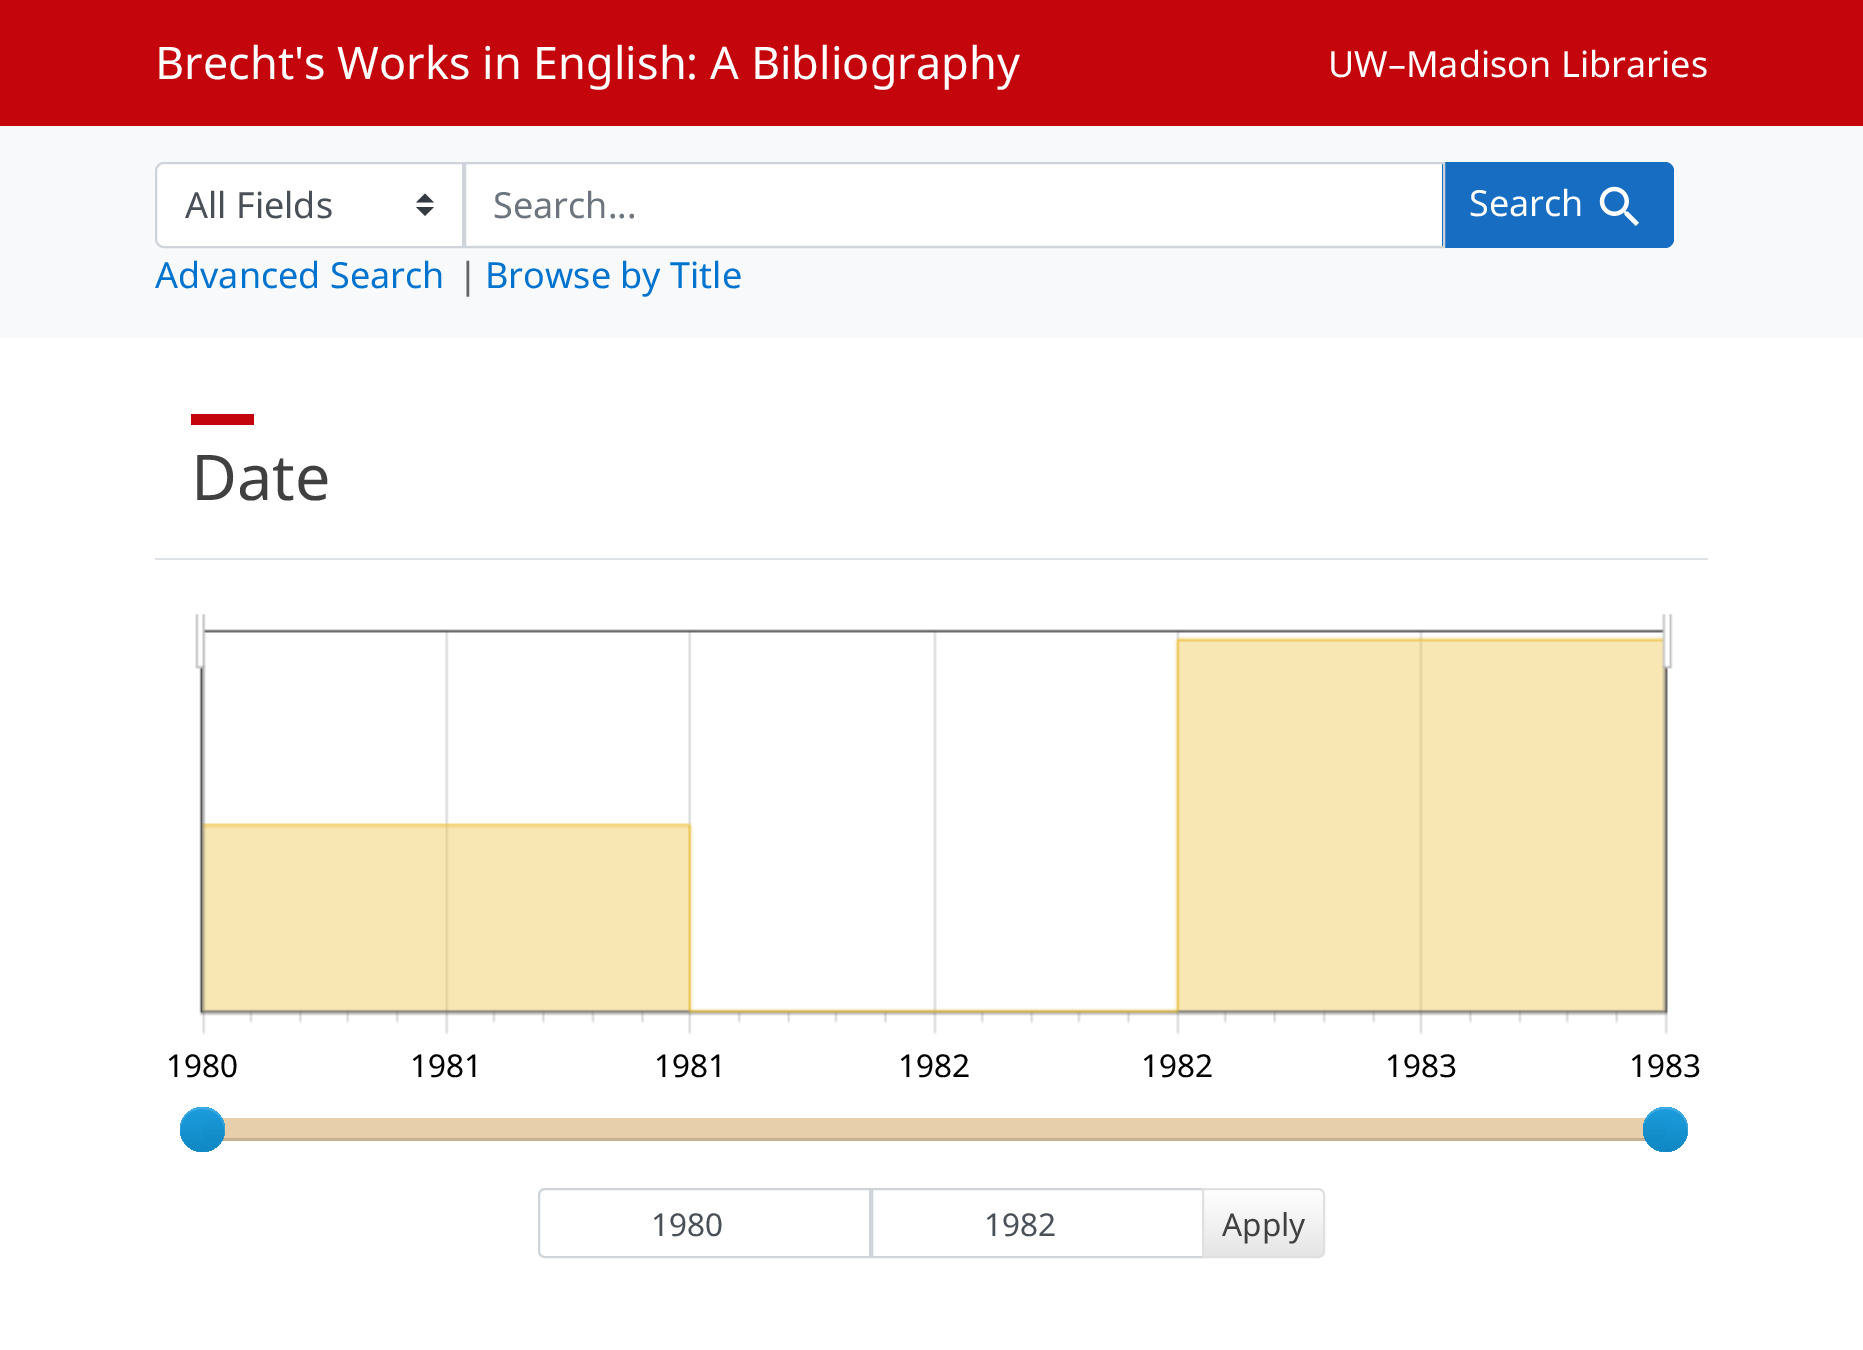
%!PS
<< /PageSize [1863 1350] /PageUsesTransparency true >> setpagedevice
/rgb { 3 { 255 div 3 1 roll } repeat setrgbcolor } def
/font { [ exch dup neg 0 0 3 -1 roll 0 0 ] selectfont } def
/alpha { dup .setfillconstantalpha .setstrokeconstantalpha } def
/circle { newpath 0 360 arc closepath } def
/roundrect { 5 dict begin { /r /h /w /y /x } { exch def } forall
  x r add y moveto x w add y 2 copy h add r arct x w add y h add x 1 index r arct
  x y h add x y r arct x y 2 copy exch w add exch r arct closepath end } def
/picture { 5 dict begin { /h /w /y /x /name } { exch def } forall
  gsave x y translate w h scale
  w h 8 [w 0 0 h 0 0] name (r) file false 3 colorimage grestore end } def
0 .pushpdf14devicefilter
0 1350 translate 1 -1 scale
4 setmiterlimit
255 255 255 rgb
0 0 1863 1350 rectfill
197 5 12 rgb
0 0 1863 126 rectfill
248 249 250 rgb
0 126 1863 212 rectfill
255 255 255 rgb
164 162 moveto 464 162 lineto 464 248 lineto 164 248 lineto 159 248 155 244 155 239 curveto 155 171 lineto 155 166 159 162 164 162 curveto closepath fill
52 58 64 rgb
425 193.5 moveto 416 202.5 lineto 434 202.5 lineto closepath 425 216 moveto 416 207 lineto 434 207 lineto closepath fill
206 212 218 rgb
2 setlinewidth
164 163 moveto 463 163 lineto 463 247 lineto 164 247 lineto 159.5 247 156 243.5 156 239 curveto 156 171 lineto 156 166.5 159.5 163 164 163 curveto closepath stroke
255 255 255 rgb
466 164 976 81 rectfill
23 109 194 rgb
1442 162 moveto 1665 162 lineto 1670 162 1674 166 1674 171 curveto 1674 239 lineto 1674 244 1670 248 1665 248 curveto 1442 248 lineto closepath fill
206 212 218 rgb
465 163 979 84 rectstroke
(img/1.rgb) 1599 186 40 40 picture
222 226 230 rgb
155 558 1553 2 rectfill
197 5 12 rgb
191 414 63 11 rectfill
(img/3.rgb) 199 629 1469 406 picture
(img/2.rgb) 195 614 1478 399 picture
232 207 172 rgb
203 1118 1462 23 9 roundrect fill
0.15 alpha
0 0 0 rgb
203 1132 moveto 203 1137 207 1141 212 1141 curveto 1656 1141 lineto 1660 1140 lineto 1665 1138 1666 1131 1665 1126 curveto 1666 1131 1663 1138 1656 1138 curveto 210 1138 lineto 206 1137 204 1135 203 1132 curveto closepath fill
0.8 alpha
14 144 210 rgb
202.5 1129.5 22.5 circle fill
gsave 202.5 1129.5 22.5 circle clip newpath
<< /ShadingType 2 /ColorSpace /DeviceRGB /Coords [203 1107 203 1152] /Extend [true true] /Function << /FunctionType 2 /Domain [0 1] /C0 [0.078 0.608 0.875] /C1 [0.016 0.502 0.745] /N 1 >> >> shfill grestore
0.16 alpha
255 255 255 rgb
202 1109 moveto 219 1109 226 1123 224 1136 curveto 231 1112 198 1096 184 1117 curveto 181 1122 179 1128 180 1133 curveto 180 1121 187 1109 202 1109 curveto closepath fill
0.8 alpha
14 144 210 rgb
1665.5 1129.5 22.5 circle fill
gsave 1665.5 1129.5 22.5 circle clip newpath
<< /ShadingType 2 /ColorSpace /DeviceRGB /Coords [1665 1107 1665 1152] /Extend [true true] /Function << /FunctionType 2 /Domain [0 1] /C0 [0.078 0.608 0.875] /C1 [0.016 0.502 0.745] /N 1 >> >> shfill grestore
0.16 alpha
255 255 255 rgb
1665 1109 moveto 1682 1109 1689 1123 1687 1136 curveto 1695 1107 1652 1095 1644 1124 curveto 1647 1116 1654 1109 1665 1109 curveto closepath fill
1 alpha
206 212 218 rgb
545 1189 moveto 870 1189 lineto 870 1257 lineto 545 1257 lineto 541.5 1257 539 1254.5 539 1251 curveto 539 1195 lineto 539 1191.5 541.5 1189 545 1189 curveto closepath stroke
872 1189 331 68 rectstroke
gsave
1202 1188 moveto 1318 1188 lineto 1322 1188 1325 1191 1325 1195 curveto 1325 1251 lineto 1325 1255 1322 1258 1318 1258 curveto 1202 1258 lineto closepath clip newpath
gsave 1204 1190 moveto 1325 1190 lineto 1325 1256 lineto 1204 1256 lineto closepath clip newpath
<< /ShadingType 2 /ColorSpace /DeviceRGB /Coords [1263 1190 1263 1256] /Extend [true true] /Function << /FunctionType 2 /Domain [0 1] /C0 [1 1 1] /C1 [0.898 0.898 0.898] /N 1 >> >> shfill grestore
grestore
224 224 224 rgb
1203 1189 moveto 1318 1189 lineto 1321.5 1189 1324 1191.5 1324 1195 curveto 1324 1251 lineto 1324 1254.5 1321.5 1257 1318 1257 curveto 1203 1257 lineto closepath stroke
/NotoSans-Regular 45 font
255 255 255 rgb
155 79 moveto (Brecht's Works in English: A Bibliography) show
/NotoSans-Regular 36 font
1328 77 moveto (UW–Madison Libraries) show
73 80 87 rgb
185 218 moveto (All Fields) show
108 117 125 rgb
493 218 moveto (Search...) show
255 255 255 rgb
1469 216 moveto (Search) show
0 115 206 rgb
155 288 moveto (Advanced Search) show
101 101 101 rgb
458 288 moveto (|) show
0 115 206 rgb
485 288 moveto (Browse by Title) show
/NotoSans-Regular 63 font
64 64 64 rgb
191 500 moveto (Date) show
/NotoSans-Regular 31.5 font
0 0 0 rgb
[
  [(1980) 166 1077]
  [(1981) 410 1077]
  [(1981) 654 1077]
  [(1982) 898 1077]
  [(1982) 1141 1077]
  [(1983) 1385 1077]
  [(1983) 1629 1077]
] { aload pop moveto show } forall
73 80 87 rgb
651 1236 moveto (1980) show
984 1236 moveto (1982) show
64 64 64 rgb
1222 1236 moveto (Apply) show
.poppdf14devicefilter showpage
